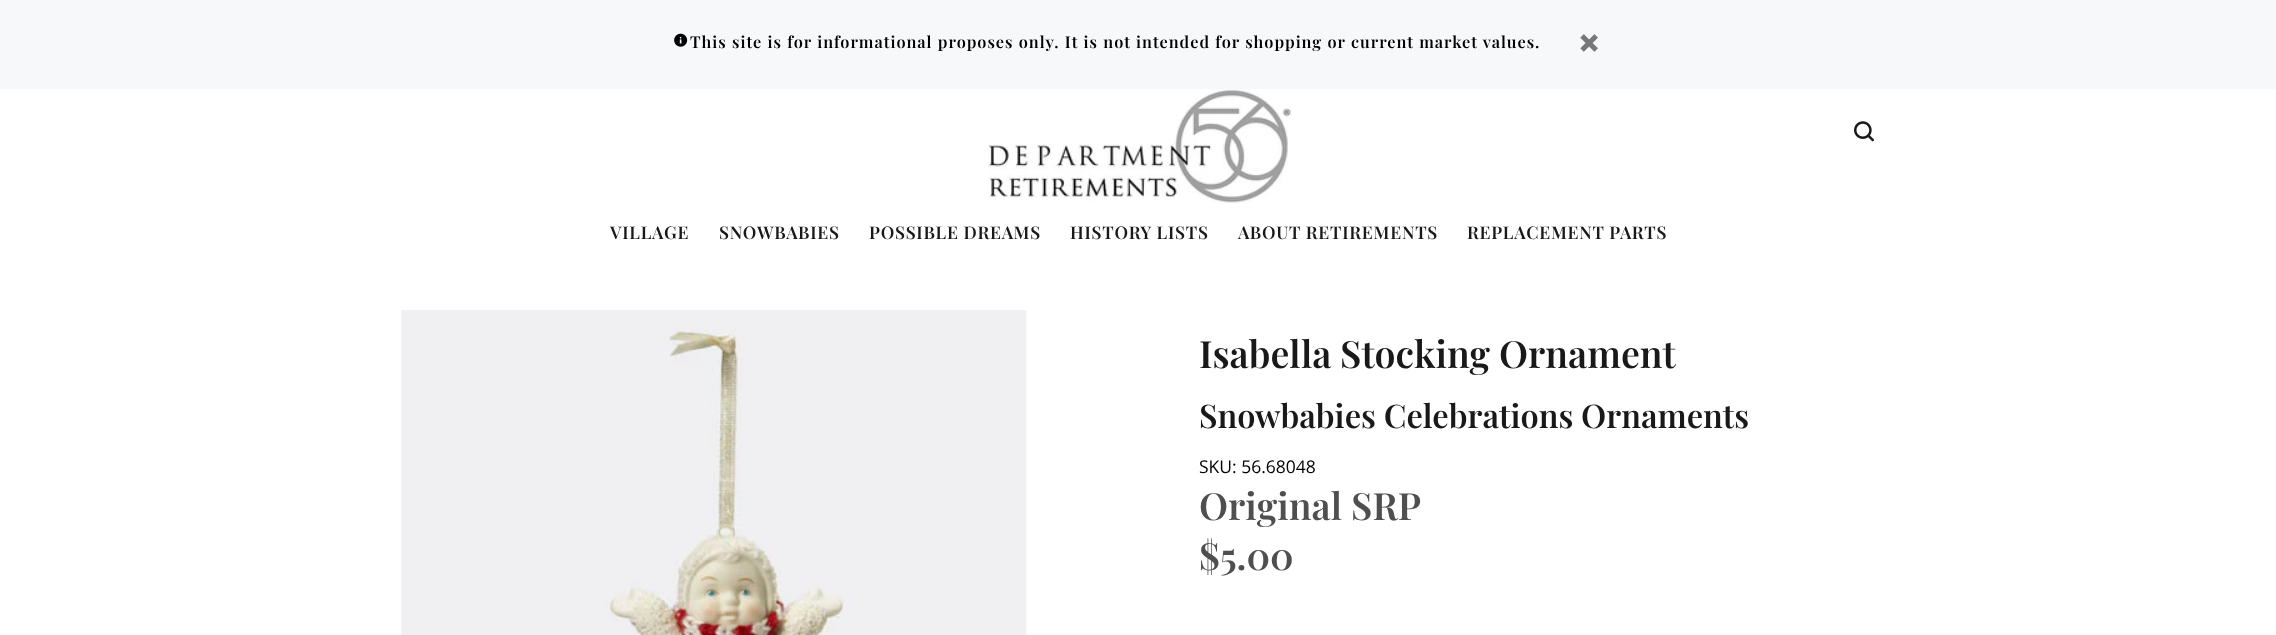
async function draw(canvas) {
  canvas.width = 2276;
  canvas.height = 635;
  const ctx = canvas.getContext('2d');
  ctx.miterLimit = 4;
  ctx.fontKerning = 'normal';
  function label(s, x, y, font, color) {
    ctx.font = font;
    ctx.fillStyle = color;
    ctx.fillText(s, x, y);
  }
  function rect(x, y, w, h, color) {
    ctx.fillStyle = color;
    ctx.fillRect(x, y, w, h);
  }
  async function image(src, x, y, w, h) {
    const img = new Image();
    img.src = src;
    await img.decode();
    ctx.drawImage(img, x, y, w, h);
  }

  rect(0, 0, 2276, 635, '#fff');
  rect(0, 0, 2276, 89, '#f7f8fa');
  await image('assets/img1.png', 674, 33, 14, 14);
  ctx.letterSpacing = '0.98px';
  ctx.wordSpacing = '0.5px';
  label('This site is for informational proposes only. It is not intended for shopping or current market values.', 690, 48, '600 16.25px Playfair Display', '#000');
  await image('assets/img2.png', 1580, 34, 18, 18);
  await image('assets/img3.png', 988, 89, 304, 114);
  await image('assets/img4.png', 1854, 121, 20, 21);
  ctx.letterSpacing = '0.75px';
  ctx.wordSpacing = '0px';
  label('VILLAGE', 610, 239, '600 17.5px Playfair Display', '#191919');
  label('SNOWBABIES', 719, 239, '600 17.5px Playfair Display', '#191919');
  label('POSSIBLE DREAMS', 869, 239, '600 17.5px Playfair Display', '#191919');
  label('HISTORY LISTS', 1070, 239, '600 17.5px Playfair Display', '#191919');
  label('ABOUT RETIREMENTS', 1238, 239, '600 17.5px Playfair Display', '#191919');
  label('REPLACEMENT PARTS', 1467, 239, '600 17.5px Playfair Display', '#191919');
  await image('assets/img5.png', 401, 310, 626, 325);
  ctx.letterSpacing = '0px';
  label('Isabella Stocking Ornament', 1199, 368, '600 37.5px Playfair Display', '#191919');
  label('Snowbabies Celebrations Ornaments', 1199, 428, '600 32.5px Playfair Display', '#191919');
  label('SKU: 56.68048', 1199, 473, '17.5px Open Sans', '#000');
  label('Original SRP', 1199, 520, '600 37.5px Playfair Display', '#4f4f4f');
  label('$5.00', 1199, 570, '600 37.5px Playfair Display', '#4f4f4f');
}

draw(document.querySelector('canvas'));
